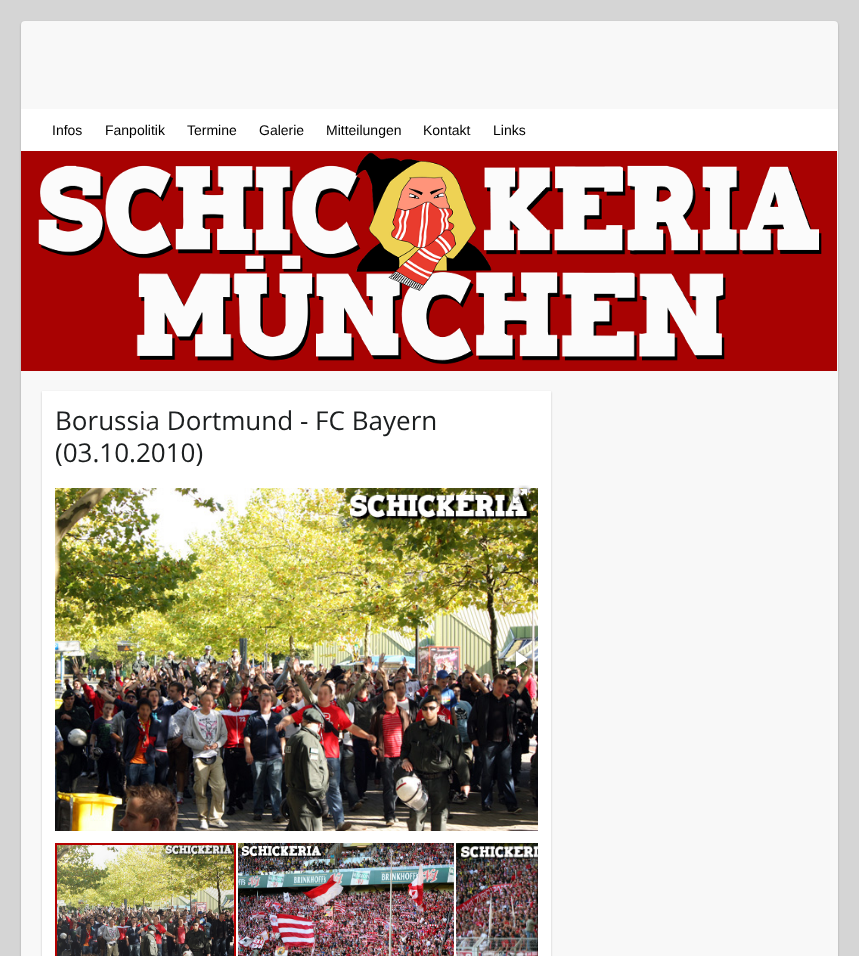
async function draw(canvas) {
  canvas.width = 859;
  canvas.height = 956;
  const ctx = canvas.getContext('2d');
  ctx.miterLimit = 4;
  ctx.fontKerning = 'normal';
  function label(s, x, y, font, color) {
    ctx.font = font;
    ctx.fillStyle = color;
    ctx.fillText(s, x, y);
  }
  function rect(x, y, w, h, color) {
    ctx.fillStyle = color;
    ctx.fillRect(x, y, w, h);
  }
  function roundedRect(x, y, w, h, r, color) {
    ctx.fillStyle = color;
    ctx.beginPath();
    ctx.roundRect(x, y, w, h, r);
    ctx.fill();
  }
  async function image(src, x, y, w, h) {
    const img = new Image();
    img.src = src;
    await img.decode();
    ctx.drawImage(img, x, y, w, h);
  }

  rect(0, 0, 859, 956, '#d5d5d5');
  ctx.fillStyle = '#00000033';
  ctx.filter = 'blur(1px)';
  ctx.beginPath();
  ctx.roundRect(21, 22, 817, 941, 4);
  ctx.fill();
  ctx.filter = 'none';
  roundedRect(21, 21, 817, 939, 4, '#f8f8f8');
  rect(21, 109, 817, 42, '#fff');
  label('Infos', 52, 135, '14px Liberation Sans', '#000');
  label('Fanpolitik', 105, 135, '14px Liberation Sans', '#000');
  label('Termine', 187, 135, '14px Liberation Sans', '#000');
  label('Galerie', 259, 135, '14px Liberation Sans', '#000');
  label('Mitteilungen', 326, 135, '14px Liberation Sans', '#000');
  label('Kontakt', 423, 135, '14px Liberation Sans', '#000');
  label('Links', 493, 135, '14px Liberation Sans', '#000');
  await image('assets/img1.png', 21, 151, 816, 220);
  ctx.fillStyle = '#00000033';
  ctx.filter = 'blur(1px)';
  ctx.beginPath();
  ctx.rect(42, 392, 509, 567);
  ctx.fill();
  ctx.filter = 'none';
  rect(42, 391, 509, 565, '#fff');
  label('Borussia Dortmund - FC Bayern', 55, 430, '26px Open Sans', '#1b1e1f');
  label('(03.10.2010)', 55, 462, '26px Open Sans', '#1b1e1f');
  await image('assets/img3.png', 55, 488, 483, 343);
  await image('assets/img2.png', 509, 485, 22, 22);
  await image('assets/img4.png', 64, 650, 14, 17);
  await image('assets/img5.png', 511, 648, 19, 22);
  await image('assets/img8.png', 57, 845, 177, 111);
  ctx.strokeStyle = '#b50000';
  ctx.lineWidth = 2;
  ctx.strokeRect(56, 844, 179, 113);
  await image('assets/img6.png', 238, 843, 216, 113);
  await image('assets/img7.png', 456, 843, 82, 113);
}

draw(document.querySelector('canvas'));
